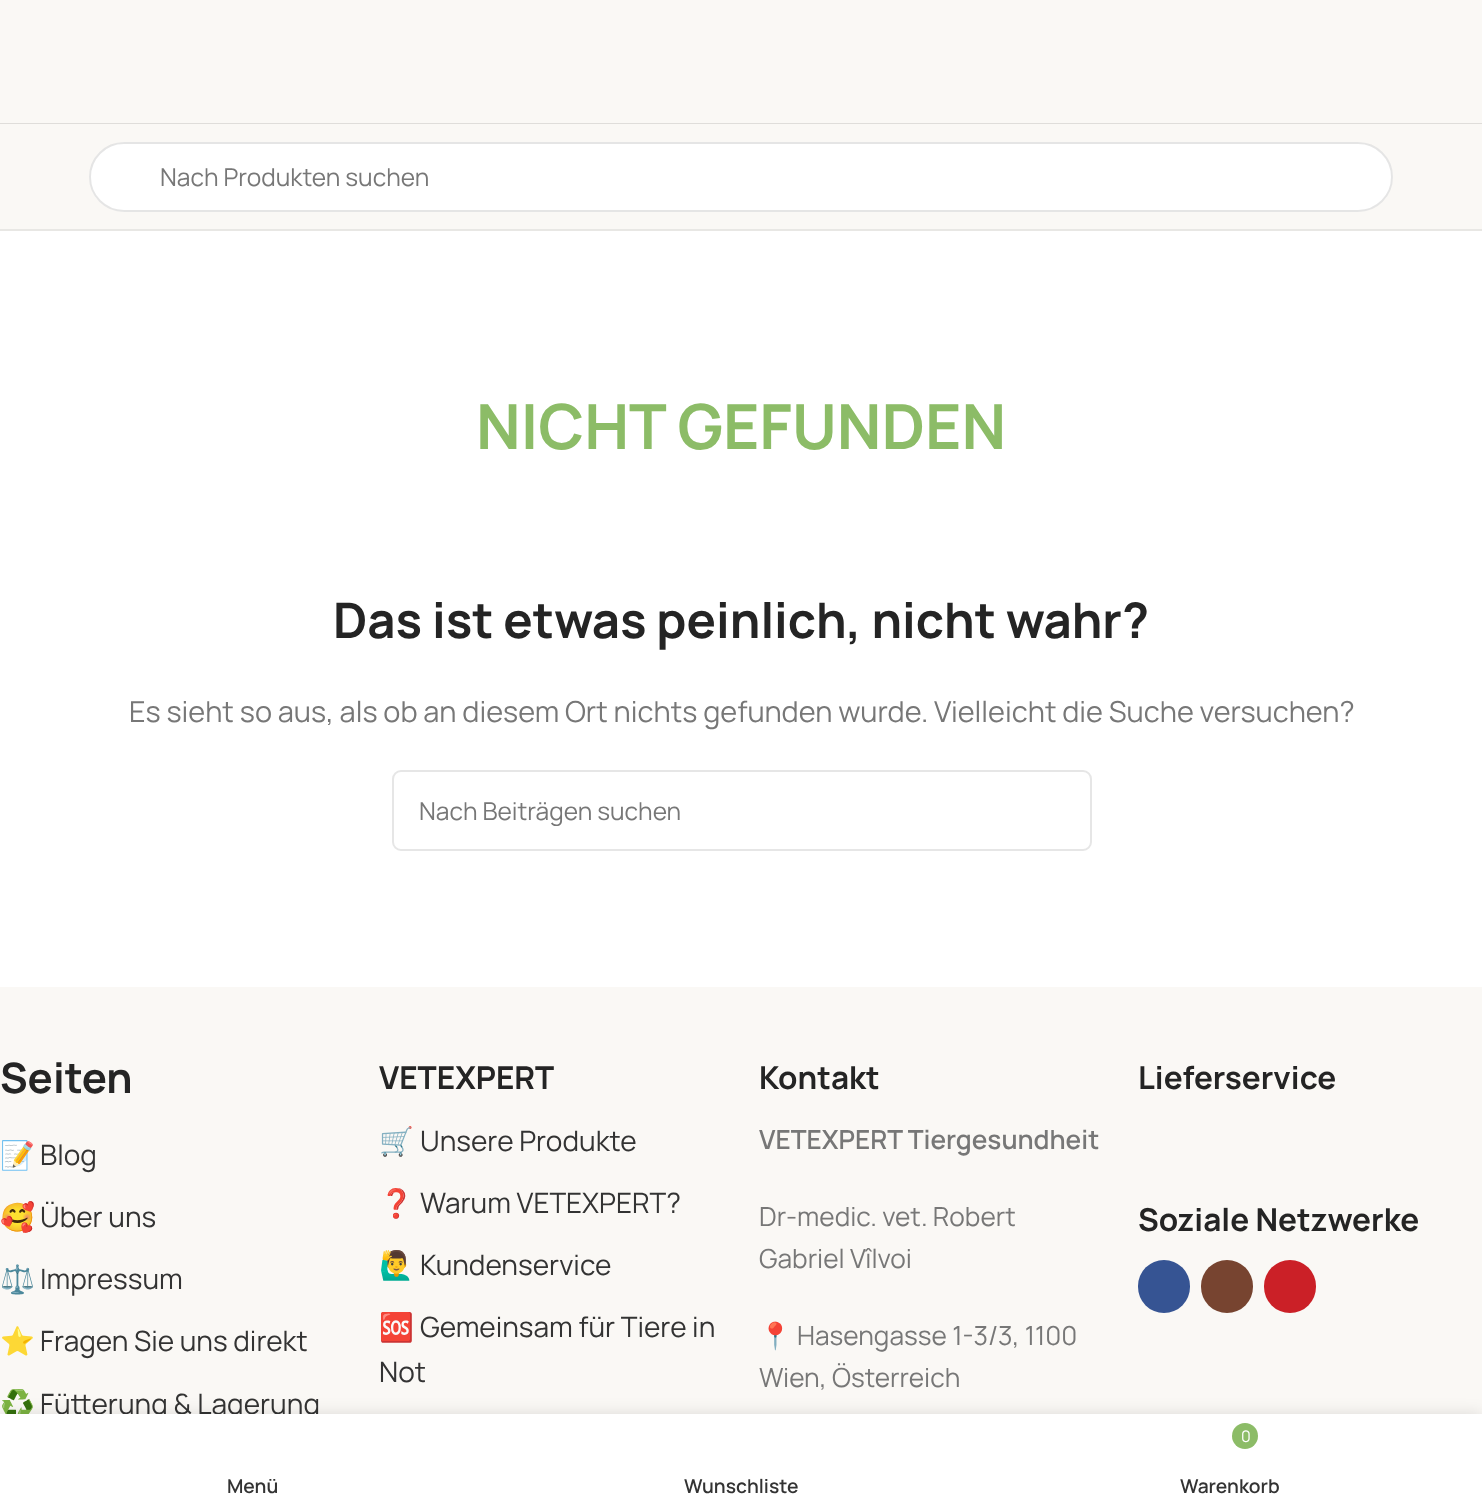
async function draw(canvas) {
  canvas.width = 1482;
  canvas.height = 1510;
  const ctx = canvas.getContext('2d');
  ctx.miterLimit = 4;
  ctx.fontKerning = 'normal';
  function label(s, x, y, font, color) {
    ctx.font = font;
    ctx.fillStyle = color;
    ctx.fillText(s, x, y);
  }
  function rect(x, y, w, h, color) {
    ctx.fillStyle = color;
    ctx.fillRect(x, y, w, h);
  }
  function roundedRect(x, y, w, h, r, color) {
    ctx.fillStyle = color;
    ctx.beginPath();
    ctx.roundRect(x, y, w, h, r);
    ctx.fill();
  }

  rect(0, 0, 1482, 1510, '#fff');
  rect(0, 0, 1482, 123, '#faf8f5');
  rect(0, 123, 1482, 1, '#dfddda');
  rect(0, 124, 1482, 105, '#faf8f5');
  rect(0, 229, 1482, 2, '#e8e7e4');
  roundedRect(89, 142, 1304, 70, 35, '#fff');
  ctx.beginPath();
  ctx.roundRect(90, 143, 1302, 68, 34);
  ctx.strokeStyle = '#0000001a';
  ctx.lineWidth = 2;
  ctx.stroke();
  label('Nach Produkten suchen', 160, 186, '24.5px Manrope', '#777');
  label('NICHT GEFUNDEN', 476, 449, 'bold 62.25px Manrope', '#8cbc67');
  label('Das ist etwas peinlich, nicht wahr?', 333, 638, 'bold 49px Manrope', '#242424');
  label('Es sieht so aus, als ob an diesem Ort nichts gefunden wurde. Vielleicht die Suche versuchen?', 129, 722, '28.9px Manrope', '#777');
  ctx.beginPath();
  ctx.roundRect(393, 771, 698, 79, 8);
  ctx.strokeStyle = '#e6e6e6';
  ctx.stroke();
  ctx.save();
  ctx.beginPath();
  ctx.rect(420, 793, 537, 33);
  ctx.clip();
  label('Nach Beiträgen suchen', 419, 820, '24.5px Manrope', '#777');
  ctx.restore();
  rect(0, 987, 1482, 427, '#faf8f5');
  label('Seiten', 0, 1093, 'bold 42px Manrope', '#242424');
  label('📝', 0, 1165, '28px Noto Color Emoji', '#333');
  label('Blog', 40, 1165, '28px Manrope', '#333');
  label('🥰', 0, 1227, '28px Noto Color Emoji', '#333');
  label('Über uns', 40, 1227, '28px Manrope', '#333');
  label('⚖️', 0, 1289, '28px Noto Color Emoji', '#333');
  label('Impressum', 40, 1289, '28px Manrope', '#333');
  label('⭐', 0, 1351, '28px Noto Color Emoji', '#333');
  label('Fragen Sie uns direkt', 40, 1351, '28px Manrope', '#333');
  label('♻️', 0, 1414, '28px Noto Color Emoji', '#333');
  label('Fütterung & Lagerung', 40, 1414, '28px Manrope', '#333');
  label('VETEXPERT', 379, 1089, 'bold 31.5px Manrope', '#242424');
  label('🛒', 379, 1151, '28px Noto Color Emoji', '#333');
  label('Unsere Produkte', 420, 1151, '28px Manrope', '#333');
  label('❓', 379, 1213, '28px Noto Color Emoji', '#333');
  label('Warum VETEXPERT?', 420, 1213, '28px Manrope', '#333');
  label('🙋‍♂️', 379, 1275, '28px Noto Color Emoji', '#333');
  label('Kundenservice', 420, 1275, '28px Manrope', '#333');
  label('🆘', 379, 1337, '28px Noto Color Emoji', '#333');
  label('Gemeinsam für Tiere in', 420, 1337, '28px Manrope', '#333');
  label('Not', 379, 1382, '28px Manrope', '#333');
  label('Kontakt', 759, 1089, 'bold 31.5px Manrope', '#242424');
  label('VETEXPERT Tiergesundheit', 759, 1149, '600 26.25px Manrope', '#777');
  label('Dr-medic. vet. Robert', 759, 1226, '26.25px Manrope', '#777');
  label('Gabriel Vîlvoi', 759, 1268, '26.25px Manrope', '#777');
  label('📍', 759, 1345, '26.25px Noto Color Emoji', '#777');
  label('Hasengasse 1-3/3, 1100', 797, 1345, '26.25px Manrope', '#777');
  label('Wien, Österreich', 759, 1387, '26.25px Manrope', '#777');
  label('Lieferservice', 1138, 1089, 'bold 31.5px Manrope', '#242424');
  label('Soziale Netzwerke', 1138, 1231, 'bold 31.5px Manrope', '#242424');
  roundedRect(1138, 1260, 52, 53, 26, '#365493');
  roundedRect(1201, 1260, 52, 53, 26, '#774430');
  roundedRect(1264, 1260, 52, 53, 26, '#cb2027');
  ctx.fillStyle = '#0000001f';
  ctx.filter = 'blur(8px)';
  ctx.beginPath();
  ctx.rect(0, 1414, 1482, 96);
  ctx.fill();
  ctx.filter = 'none';
  rect(0, 1414, 1482, 96, '#fff');
  label('Menü', 227, 1493, '600 19.25px Manrope', '#333');
  label('Wunschliste', 684, 1493, '600 19.25px Manrope', '#333');
  ctx.fillStyle = '#8cbc67';
  ctx.beginPath();
  ctx.arc(1245, 1436, 13, 0, 2 * Math.PI);
  ctx.fill();
  label('0', 1241, 1442, '16px Manrope', '#fff');
  label('Warenkorb', 1180, 1493, '600 19.25px Manrope', '#333');
}

draw(document.querySelector('canvas'));
